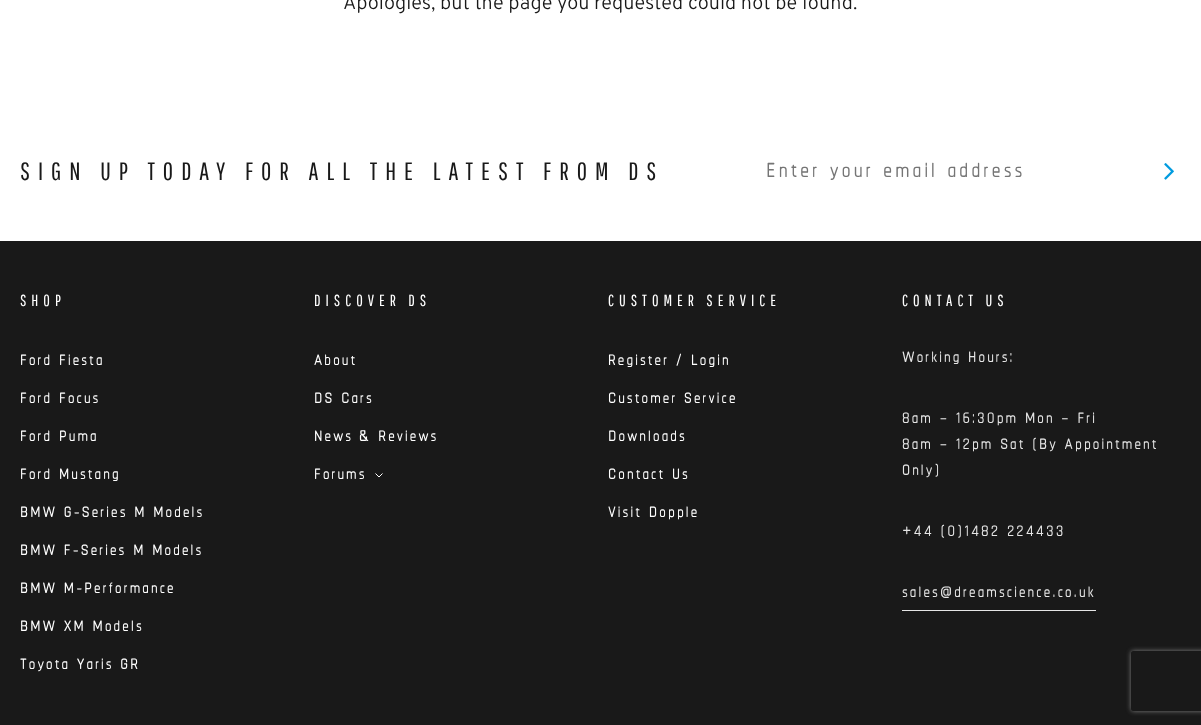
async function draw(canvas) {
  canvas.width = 1201;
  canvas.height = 725;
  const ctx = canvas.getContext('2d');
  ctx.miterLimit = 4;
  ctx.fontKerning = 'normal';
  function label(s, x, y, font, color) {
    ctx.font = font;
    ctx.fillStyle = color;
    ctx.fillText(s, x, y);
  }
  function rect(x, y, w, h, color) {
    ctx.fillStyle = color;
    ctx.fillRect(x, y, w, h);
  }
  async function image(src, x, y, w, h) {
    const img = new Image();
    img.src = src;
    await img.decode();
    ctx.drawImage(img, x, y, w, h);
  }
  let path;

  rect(0, 0, 1201, 725, '#fff');
  label('Apologies, but the page you requested could not be found.', 343, 9, '300 20px Overpass', '#191919');
  ctx.letterSpacing = '8px';
  label('SIGN UP TODAY FOR ALL THE LATEST FROM DS', 20, 180, '25px Pathway Gothic One', '#191919');
  ctx.letterSpacing = '3px';
  label('Enter your email address', 766, 177, 'bold 35px Chathura', '#757575');
  await image('assets/img1.png', 1164, 163, 10, 17);
  rect(0, 241, 1201, 484, '#191919');
  ctx.letterSpacing = '5px';
  label('SHOP', 20, 306, '16px Pathway Gothic One', '#fff');
  ctx.letterSpacing = '2px';
  label('Ford Fiesta', 20, 365, 'bold 26px Chathura', '#fff');
  label('Ford Focus', 20, 403, 'bold 26px Chathura', '#fff');
  label('Ford Puma', 20, 441, 'bold 26px Chathura', '#fff');
  label('Ford Mustang', 20, 479, 'bold 26px Chathura', '#fff');
  label('BMW G-Series M Models', 20, 517, 'bold 26px Chathura', '#fff');
  label('BMW F-Series M Models', 20, 555, 'bold 26px Chathura', '#fff');
  label('BMW M-Performance', 20, 593, 'bold 26px Chathura', '#fff');
  label('BMW XM Models', 20, 631, 'bold 26px Chathura', '#fff');
  label('Toyota Yaris GR', 20, 669, 'bold 26px Chathura', '#fff');
  ctx.letterSpacing = '5px';
  label('DISCOVER DS', 314, 306, '16px Pathway Gothic One', '#fff');
  ctx.letterSpacing = '2px';
  label('About', 314, 365, 'bold 26px Chathura', '#fff');
  label('DS Cars', 314, 403, 'bold 26px Chathura', '#fff');
  label('News & Reviews', 314, 441, 'bold 26px Chathura', '#fff');
  label('Forums', 314, 479, 'bold 26px Chathura', '#fff');
  path = new Path2D('M382.5 473.5L379 477L375.5 473.5');
  ctx.strokeStyle = '#fff';
  ctx.stroke(path);
  ctx.letterSpacing = '5px';
  label('CUSTOMER SERVICE', 608, 306, '16px Pathway Gothic One', '#fff');
  ctx.letterSpacing = '2px';
  label('Register / Login', 608, 365, 'bold 26px Chathura', '#fff');
  label('Customer Service', 608, 403, 'bold 26px Chathura', '#fff');
  label('Downloads', 608, 441, 'bold 26px Chathura', '#fff');
  label('Contact Us', 608, 479, 'bold 26px Chathura', '#fff');
  label('Visit Dopple', 608, 517, 'bold 26px Chathura', '#fff');
  ctx.letterSpacing = '5px';
  label('CONTACT US', 902, 306, '16px Pathway Gothic One', '#fff');
  ctx.letterSpacing = '2px';
  label('Working Hours:', 902, 362, 'bold 26px Chathura', '#e6e6e6');
  label('8am – 16:30pm Mon – Fri', 902, 423, 'bold 26px Chathura', '#e6e6e6');
  label('8am – 12pm Sat (By Appointment', 902, 449, 'bold 26px Chathura', '#e6e6e6');
  label('Only)', 902, 475, 'bold 26px Chathura', '#e6e6e6');
  label('+44 (0)1482 224433', 902, 536, 'bold 26px Chathura', '#e6e6e6');
  rect(902, 610, 194, 1, '#e6e6e6');
  label('sales@dreamscience.co.uk', 902, 597, 'bold 26px Chathura', '#e6e6e6');
  ctx.save();
  path = new Path2D('M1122 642H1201V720H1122ZM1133 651H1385C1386 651 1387 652 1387 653V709C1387 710 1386 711 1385 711H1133C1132 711 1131 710 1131 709V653C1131 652 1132 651 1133 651Z');
  ctx.clip(path, 'evenodd');
  ctx.fillStyle = '#808080';
  ctx.filter = 'blur(2.5px)';
  ctx.beginPath();
  ctx.roundRect(1131, 651, 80, 60, 2);
  ctx.fill();
  ctx.filter = 'none';
  ctx.restore();
}

draw(document.querySelector('canvas'));
